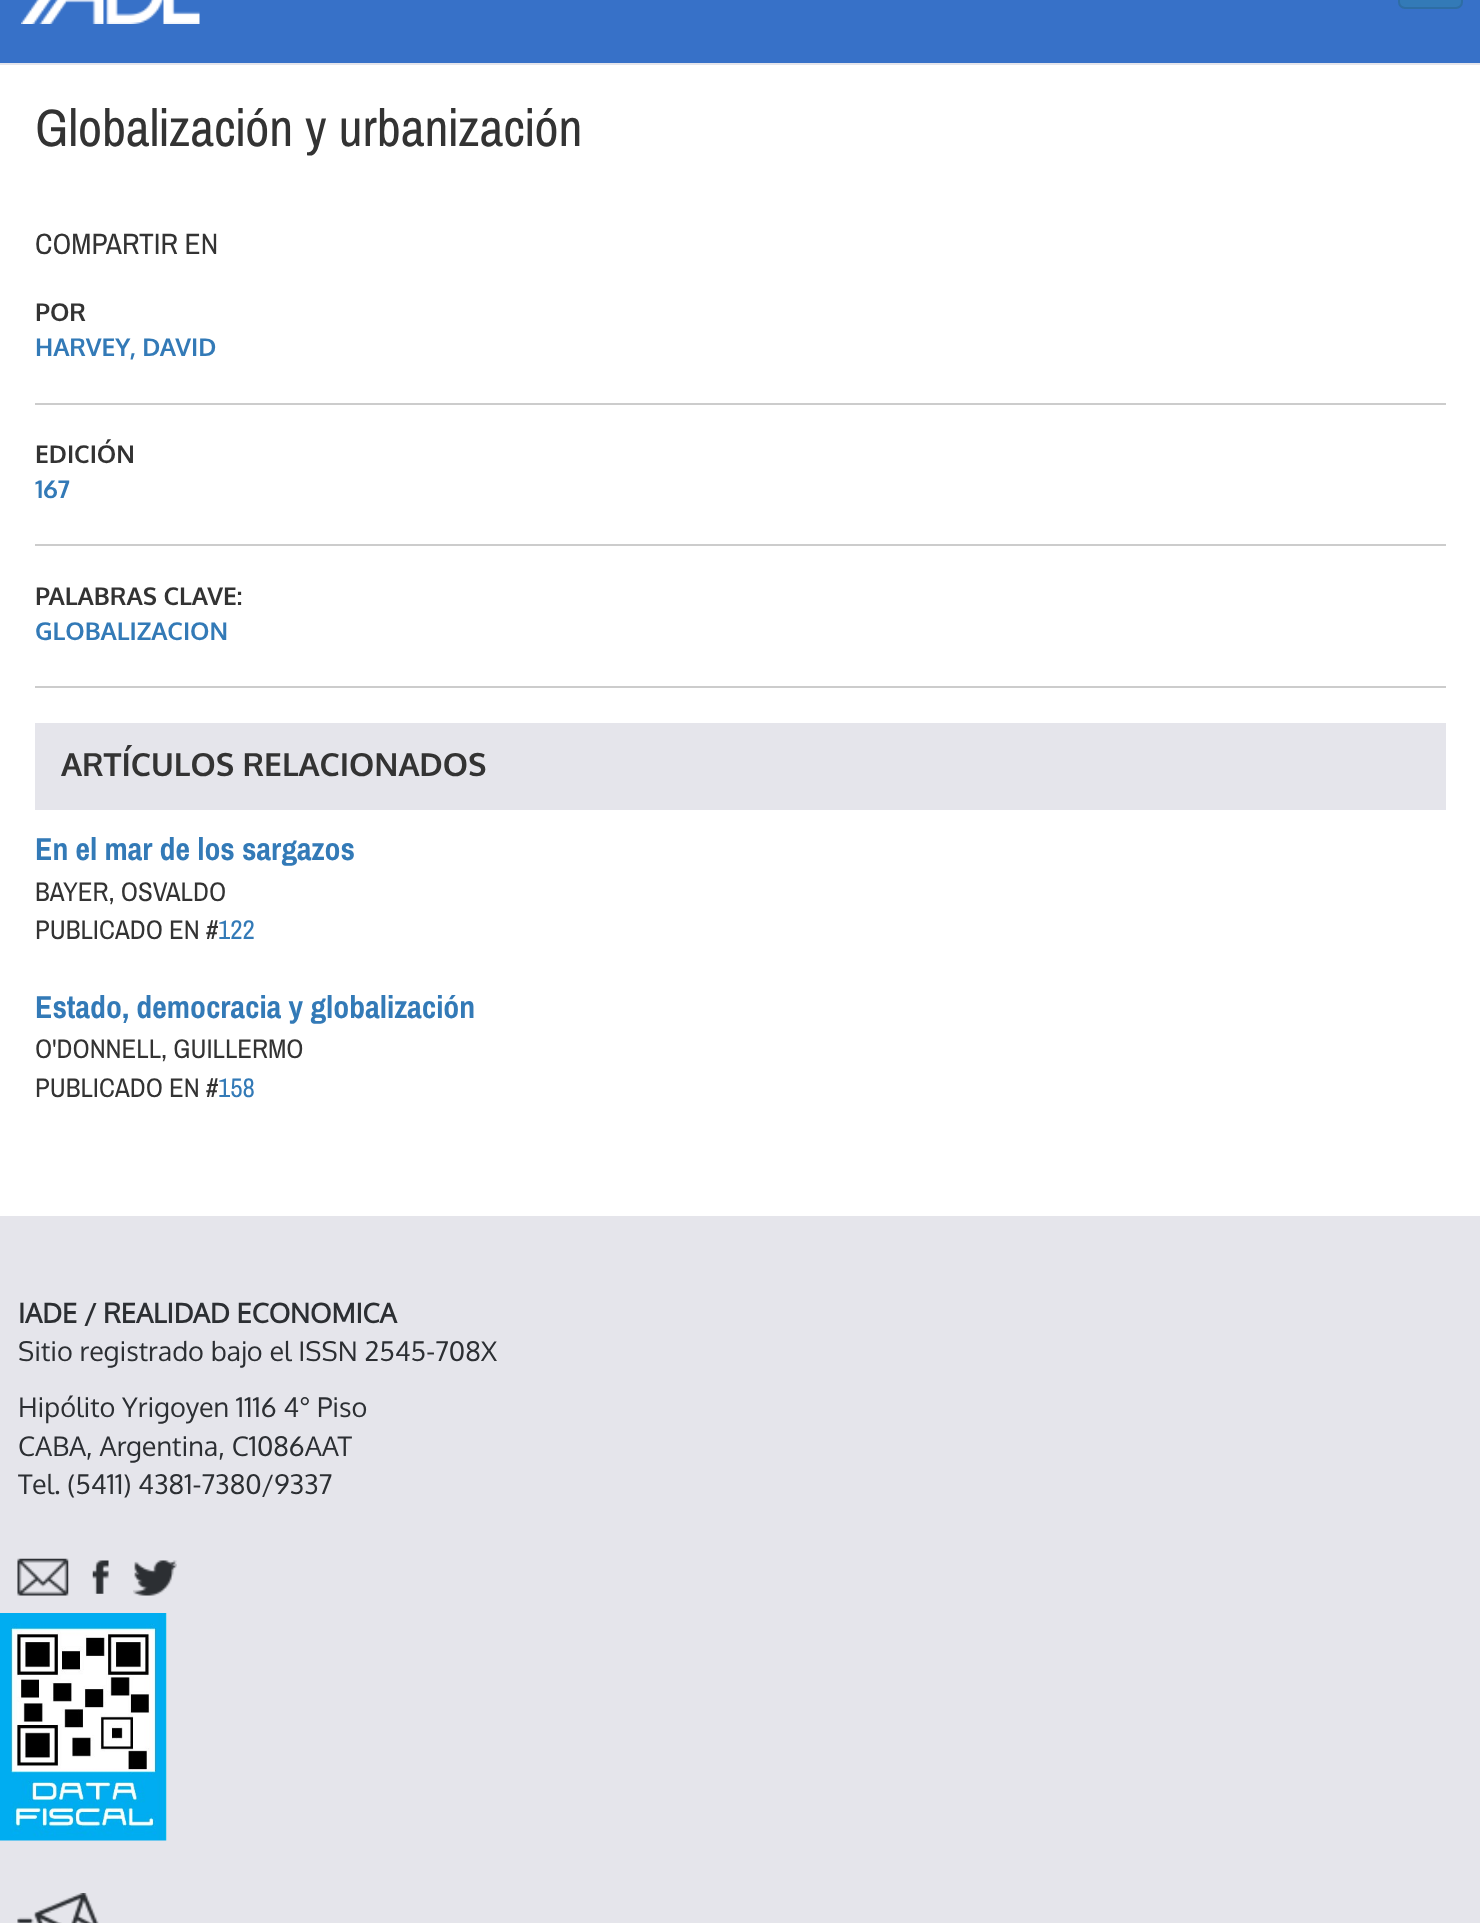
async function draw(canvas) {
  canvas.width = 1480;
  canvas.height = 1923;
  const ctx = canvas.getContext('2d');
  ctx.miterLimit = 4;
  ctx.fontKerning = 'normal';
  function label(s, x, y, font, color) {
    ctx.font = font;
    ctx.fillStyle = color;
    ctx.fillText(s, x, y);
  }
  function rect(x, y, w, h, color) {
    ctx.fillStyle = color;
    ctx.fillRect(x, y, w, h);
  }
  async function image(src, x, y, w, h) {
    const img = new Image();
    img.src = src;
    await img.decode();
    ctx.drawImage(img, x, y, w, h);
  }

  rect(0, 0, 1480, 1923, '#fff');
  rect(0, 0, 1480, 63, '#3771c8');
  await image('assets/img1.png', 21, 0, 179, 24);
  ctx.fillStyle = '#337ab7';
  ctx.beginPath();
  ctx.roundRect(1399, -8, 63, 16, 6);
  ctx.fill();
  ctx.strokeStyle = '#2e6da4';
  ctx.lineWidth = 2;
  ctx.stroke();
  rect(0, 63, 1480, 2, '#e5e5eb');
  label('Globalización y urbanización', 35, 146, '52.5px Archivo Narrow', '#333');
  label('COMPARTIR EN', 35, 254, '29.5px Archivo Narrow', '#333');
  rect(35, 403, 1411, 2, '#ccc');
  label('POR', 35, 321, 'bold 24.5px Oxygen', '#333');
  label('HARVEY, DAVID', 35, 356, 'bold 24.5px Oxygen', '#337ab7');
  rect(35, 544, 1411, 2, '#ccc');
  label('EDICIÓN', 35, 463, 'bold 24.5px Oxygen', '#333');
  label('167', 35, 498, 'bold 24.5px Oxygen', '#337ab7');
  rect(35, 686, 1411, 2, '#ccc');
  label('PALABRAS CLAVE:', 35, 605, 'bold 24.5px Oxygen', '#333');
  label('GLOBALIZACION', 35, 640, 'bold 24.5px Oxygen', '#337ab7');
  rect(35, 723, 1411, 87, '#e5e5eb');
  label('ARTÍCULOS RELACIONADOS', 61, 776, 'bold 31.8px Oxygen', '#333');
  label('En el mar de los sargazos', 35, 860, 'bold 31.8px Archivo Narrow', '#337ab7');
  label('BAYER, OSVALDO', 35, 901, '27px Archivo Narrow', '#333');
  label('PUBLICADO EN #', 35, 939, '27px Archivo Narrow', '#333');
  label('122', 218, 939, '27px Archivo Narrow', '#337ab7');
  label('Estado, democracia y globalización', 35, 1018, 'bold 31.8px Archivo Narrow', '#337ab7');
  label('O\'DONNELL, GUILLERMO', 35, 1058, '27px Archivo Narrow', '#333');
  label('PUBLICADO EN #', 35, 1097, '27px Archivo Narrow', '#333');
  label('158', 218, 1097, '27px Archivo Narrow', '#337ab7');
  rect(0, 1216, 1480, 707, '#e5e5eb');
  label('IADE / REALIDAD ECONOMICA', 18, 1323, 'bold 27px "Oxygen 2"', '#2c2f33');
  label('Sitio registrado bajo el ISSN 2545-708X', 18, 1361, '27px Oxygen', '#2c2f33');
  label('Hipólito Yrigoyen 1116 4° Piso', 18, 1417, '27px Oxygen', '#2c2f33');
  label('CABA, Argentina, C1086AAT', 18, 1456, '27px Oxygen', '#2c2f33');
  label('Tel. (5411) 4381-7380/9337', 18, 1494, '27px Oxygen', '#2c2f33');
  await image('assets/img2.png', 17, 1558, 52, 38);
  await image('assets/img3.png', 92, 1560, 17, 34);
  await image('assets/img4.png', 133, 1560, 44, 36);
  await image('assets/img5.png', 0, 1613, 167, 228);
  await image('assets/img6.png', 17, 1893, 82, 30);
}

draw(document.querySelector('canvas'));
